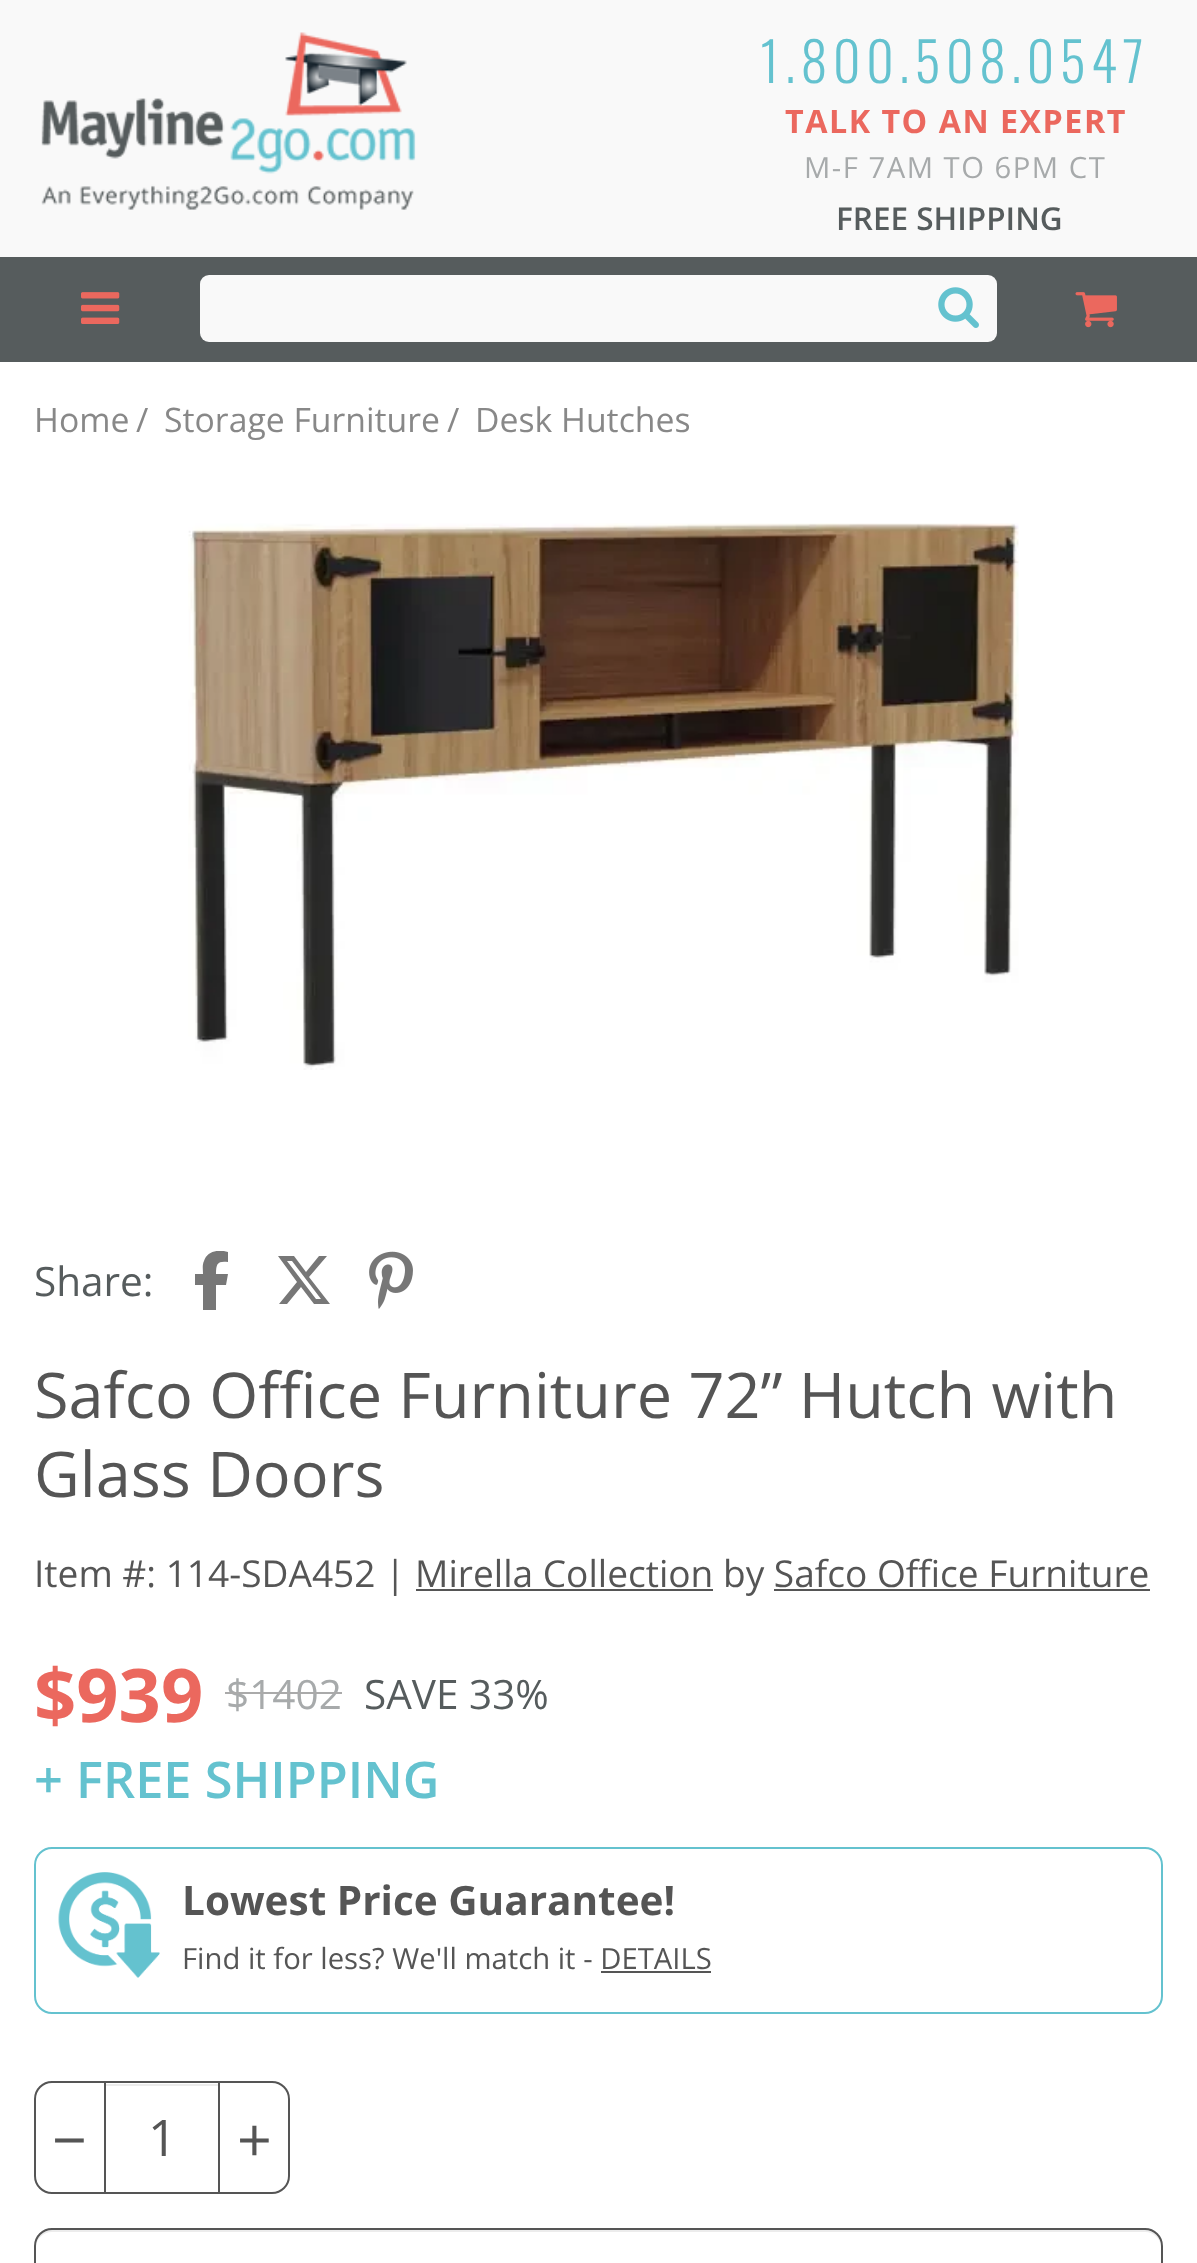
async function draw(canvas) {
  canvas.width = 1197;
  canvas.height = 2263;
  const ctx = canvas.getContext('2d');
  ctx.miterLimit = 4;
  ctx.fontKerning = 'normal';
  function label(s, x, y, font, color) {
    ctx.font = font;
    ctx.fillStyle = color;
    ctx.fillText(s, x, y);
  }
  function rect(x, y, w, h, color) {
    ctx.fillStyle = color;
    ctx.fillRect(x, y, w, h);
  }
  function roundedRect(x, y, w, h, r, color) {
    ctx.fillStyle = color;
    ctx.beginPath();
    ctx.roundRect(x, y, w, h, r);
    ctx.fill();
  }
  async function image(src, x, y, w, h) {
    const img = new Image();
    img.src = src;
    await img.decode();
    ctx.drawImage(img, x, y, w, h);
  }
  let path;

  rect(0, 0, 1197, 2263, '#fff');
  rect(0, 0, 1197, 257, '#f9f9f9');
  await image('assets/img1.png', 41, 32, 375, 178);
  ctx.letterSpacing = '5.4px';
  label('1.800.508.0547', 760, 83, '300 54px Oswald', '#64c2cf');
  ctx.letterSpacing = '1.5px';
  label('TALK TO AN EXPERT', 785, 133, 'bold 32.25px Open Sans', '#eb685e');
  label('M-F 7AM TO 6PM CT', 804, 178, '29.25px Open Sans', '#a7aaab');
  ctx.letterSpacing = '0px';
  label('FREE SHIPPING', 836, 230, '600 31.5px Open Sans', '#565c5d');
  rect(0, 257, 1197, 105, '#565c5d');
  await image('assets/img2.png', 81, 292, 39, 32);
  roundedRect(200, 275, 797, 67, 9, '#f9f9f9');
  await image('assets/img3.png', 938, 287, 41, 41);
  await image('assets/img4.png', 1075, 292, 42, 36);
  label('Home', 34, 432, '33.75px Open Sans', '#888');
  label('/', 136, 432, '33.75px Open Sans', '#888');
  label('Storage Furniture', 164, 432, '33.75px Open Sans', '#888');
  label('/', 447, 432, '33.75px Open Sans', '#888');
  label('Desk Hutches', 475, 432, '33.75px Open Sans', '#888');
  await image('assets/img5.png', 188, 523, 831, 547);
  label('Share:', 34, 1296, '40.5px Open Sans', '#565c5d');
  ctx.save();
  ctx.beginPath();
  ctx.rect(194, 1251, 36, 59);
  ctx.clip();
  ctx.fillStyle = '#777';
  path = new Path2D('M203 1285V1310H216V1285H226L228 1274H216C216 1263 218 1261 228 1262V1252C219 1249 207 1251 204 1261C202 1265 203 1270 203 1274H195V1285Z');
  ctx.fill(path);
  ctx.restore();
  ctx.fillStyle = '#777';
  path = new Path2D('M319 1256H327L309 1277L330 1304H314L301 1287L287 1304H279L297 1282L278 1256H294L306 1272ZM316 1299H321L292 1261H287Z');
  ctx.fill(path);
  await image('assets/img6.png', 369, 1251, 44, 58);
  label('Safco Office Furniture 72” Hutch with', 34, 1418, '63px Open Sans', '#555');
  label('Glass Doors', 34, 1497, '63px Open Sans', '#555');
  label('Item #: 114-SDA452 | Mirella Collection by Safco Office Furniture', 34, 1587, '37.1px Open Sans', '#555');
  rect(416, 1589, 297, 2, '#555');
  rect(774, 1589, 376, 2, '#555');
  label('$939', 34, 1722, 'bold 74px Open Sans', '#eb685e');
  label('$1402', 226, 1709, '40.5px Open Sans', '#a7aaab');
  rect(225, 1692, 117, 2, '#aaa');
  label('SAVE 33%', 364, 1709, '40.5px Open Sans', '#565c5d');
  label('+ FREE SHIPPING', 34, 1798, '600 50.5px Open Sans', '#64c2cf');
  ctx.beginPath();
  ctx.roundRect(35, 1848, 1127, 165, 17);
  ctx.strokeStyle = '#64c2cf';
  ctx.lineWidth = 2;
  ctx.stroke();
  await image('assets/img7.png', 58, 1872, 102, 106);
  label('Lowest Price Guarantee!', 182, 1915, 'bold 40.5px Open Sans', '#555');
  label('Find it for less? We\'ll match it - DETAILS', 182, 1969, '29.25px Open Sans', '#555');
  rect(601, 1971, 110, 2, '#555');
  ctx.beginPath();
  ctx.roundRect(35, 2082, 70, 111, [17, 0, 0, 17]);
  ctx.strokeStyle = '#555';
  ctx.stroke();
  label('−', 52, 2162, '61px Open Sans', '#555');
  rect(106, 2084, 112, 2, '#ececec');
  rect(106, 2081, 112, 2, '#555');
  rect(106, 2192, 112, 2, '#555');
  label('1', 148, 2156, '50.5px Open Sans', '#555');
  ctx.beginPath();
  ctx.roundRect(219, 2082, 70, 111, [0, 17, 17, 0]);
  ctx.stroke();
  label('+', 237, 2162, '61px Open Sans', '#555');
  ctx.fillStyle = '#ececec';
  path = new Path2D('M52 2232H1145C1154 2232 1161 2239 1161 2248V2246C1161 2237 1154 2230 1145 2230H52C43 2230 36 2237 36 2246V2248C36 2239 43 2232 52 2232Z');
  ctx.fill(path);
  ctx.beginPath();
  ctx.roundRect(35, 2229, 1127, 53, 17);
  ctx.stroke();
}

draw(document.querySelector('canvas'));
